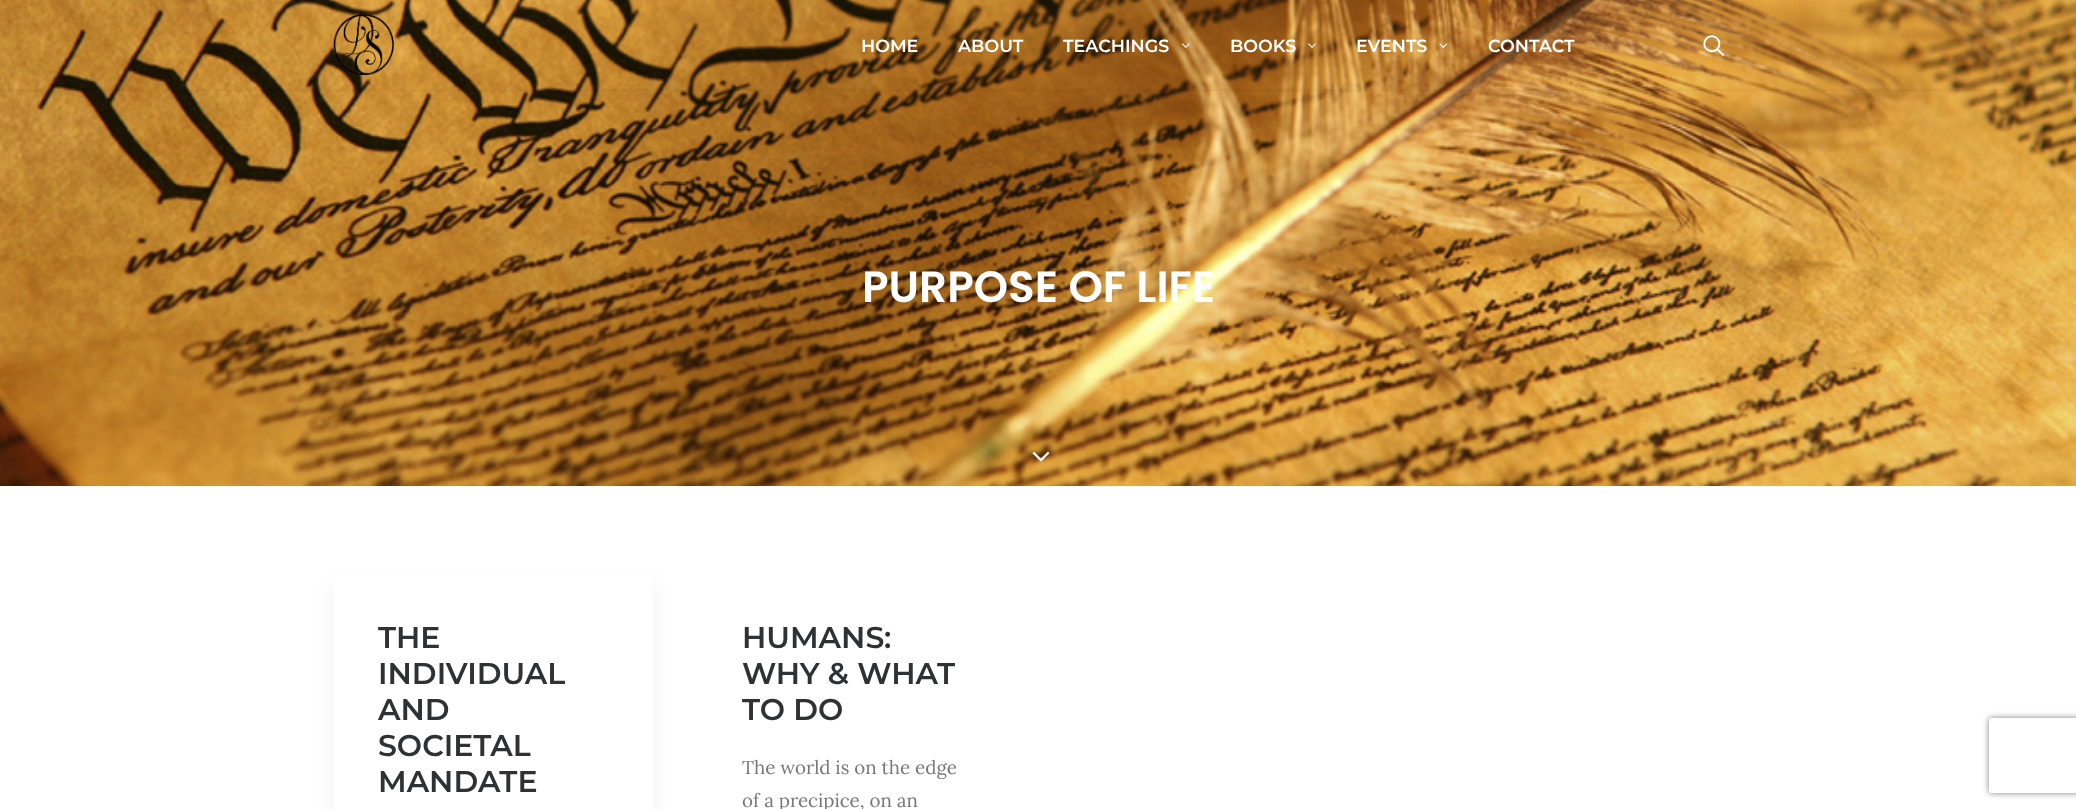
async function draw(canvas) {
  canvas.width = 2076;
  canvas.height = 809;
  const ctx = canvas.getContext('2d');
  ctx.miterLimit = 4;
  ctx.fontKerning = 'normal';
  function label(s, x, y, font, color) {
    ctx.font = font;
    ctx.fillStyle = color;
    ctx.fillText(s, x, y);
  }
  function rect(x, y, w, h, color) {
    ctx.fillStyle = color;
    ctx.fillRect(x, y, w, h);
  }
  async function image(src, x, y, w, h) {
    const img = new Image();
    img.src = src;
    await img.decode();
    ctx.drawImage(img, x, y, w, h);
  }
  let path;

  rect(0, 0, 2076, 809, '#fff');
  await image('assets/img6.png', 0, 0, 2076, 486);
  ctx.save();
  ctx.beginPath();
  ctx.rect(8, 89, 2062, 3);
  ctx.clip();
  ctx.fillStyle = '#00000099';
  ctx.filter = 'blur(6px)';
  ctx.beginPath();
  ctx.rect(9, 18, 2060, 63);
  ctx.fill();
  ctx.filter = 'none';
  ctx.restore();
  await image('assets/img1.png', 333, 12, 61, 63);
  label('HOME', 861, 52, '600 17.5px Montserrat', '#fff');
  label('ABOUT', 958, 52, '600 17.5px Montserrat', '#fff');
  label('TEACHINGS', 1063, 52, '600 17.5px Montserrat', '#fff');
  await image('assets/img2.png', 1181, 43, 9, 5);
  label('BOOKS', 1230, 52, '600 17.5px Montserrat', '#fff');
  await image('assets/img3.png', 1308, 43, 8, 5);
  label('EVENTS', 1356, 52, '600 17.5px Montserrat', '#fff');
  await image('assets/img4.png', 1439, 43, 9, 5);
  label('CONTACT', 1488, 52, '600 17.5px Montserrat', '#fff');
  await image('assets/img5.png', 1703, 35, 21, 21);
  label('PURPOSE OF LIFE', 862, 302, '600 43.75px Poppins', '#fff');
  await image('assets/img7.png', 1032, 451, 18, 11);
  ctx.fillStyle = '#0000000d';
  ctx.filter = 'blur(9.5px)';
  ctx.beginPath();
  ctx.rect(334, 583, 319, 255);
  ctx.fill();
  ctx.filter = 'none';
  rect(334, 576, 319, 233, '#fff');
  label('THE', 378, 648, '600 30px Montserrat', '#303133');
  label('INDIVIDUAL', 378, 684, '600 30px Montserrat', '#303133');
  label('AND', 378, 720, '600 30px Montserrat', '#303133');
  label('SOCIETAL', 378, 756, '600 30px Montserrat', '#303133');
  label('MANDATE', 378, 792, '600 30px Montserrat', '#303133');
  label('HUMANS:', 742, 648, '600 30px Montserrat', '#303133');
  label('WHY & WHAT', 742, 684, '600 30px Montserrat', '#303133');
  label('TO DO', 742, 720, '600 30px Montserrat', '#303133');
  label('The world is on the edge', 742, 774, '18.75px Lora', '#777');
  label('of a precipice, on an', 742, 807, '18.75px Lora', '#777');
  ctx.save();
  path = new Path2D('M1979 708H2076V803H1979ZM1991.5 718H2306.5C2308 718 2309 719 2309 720.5V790.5C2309 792 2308 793 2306.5 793H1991.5C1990 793 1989 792 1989 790.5V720.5C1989 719 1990 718 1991.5 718Z');
  ctx.clip(path, 'evenodd');
  ctx.fillStyle = '#808080';
  ctx.filter = 'blur(3px)';
  ctx.beginPath();
  ctx.roundRect(1989, 718, 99, 75, 2.5);
  ctx.fill();
  ctx.filter = 'none';
  ctx.restore();
}

draw(document.querySelector('canvas'));
